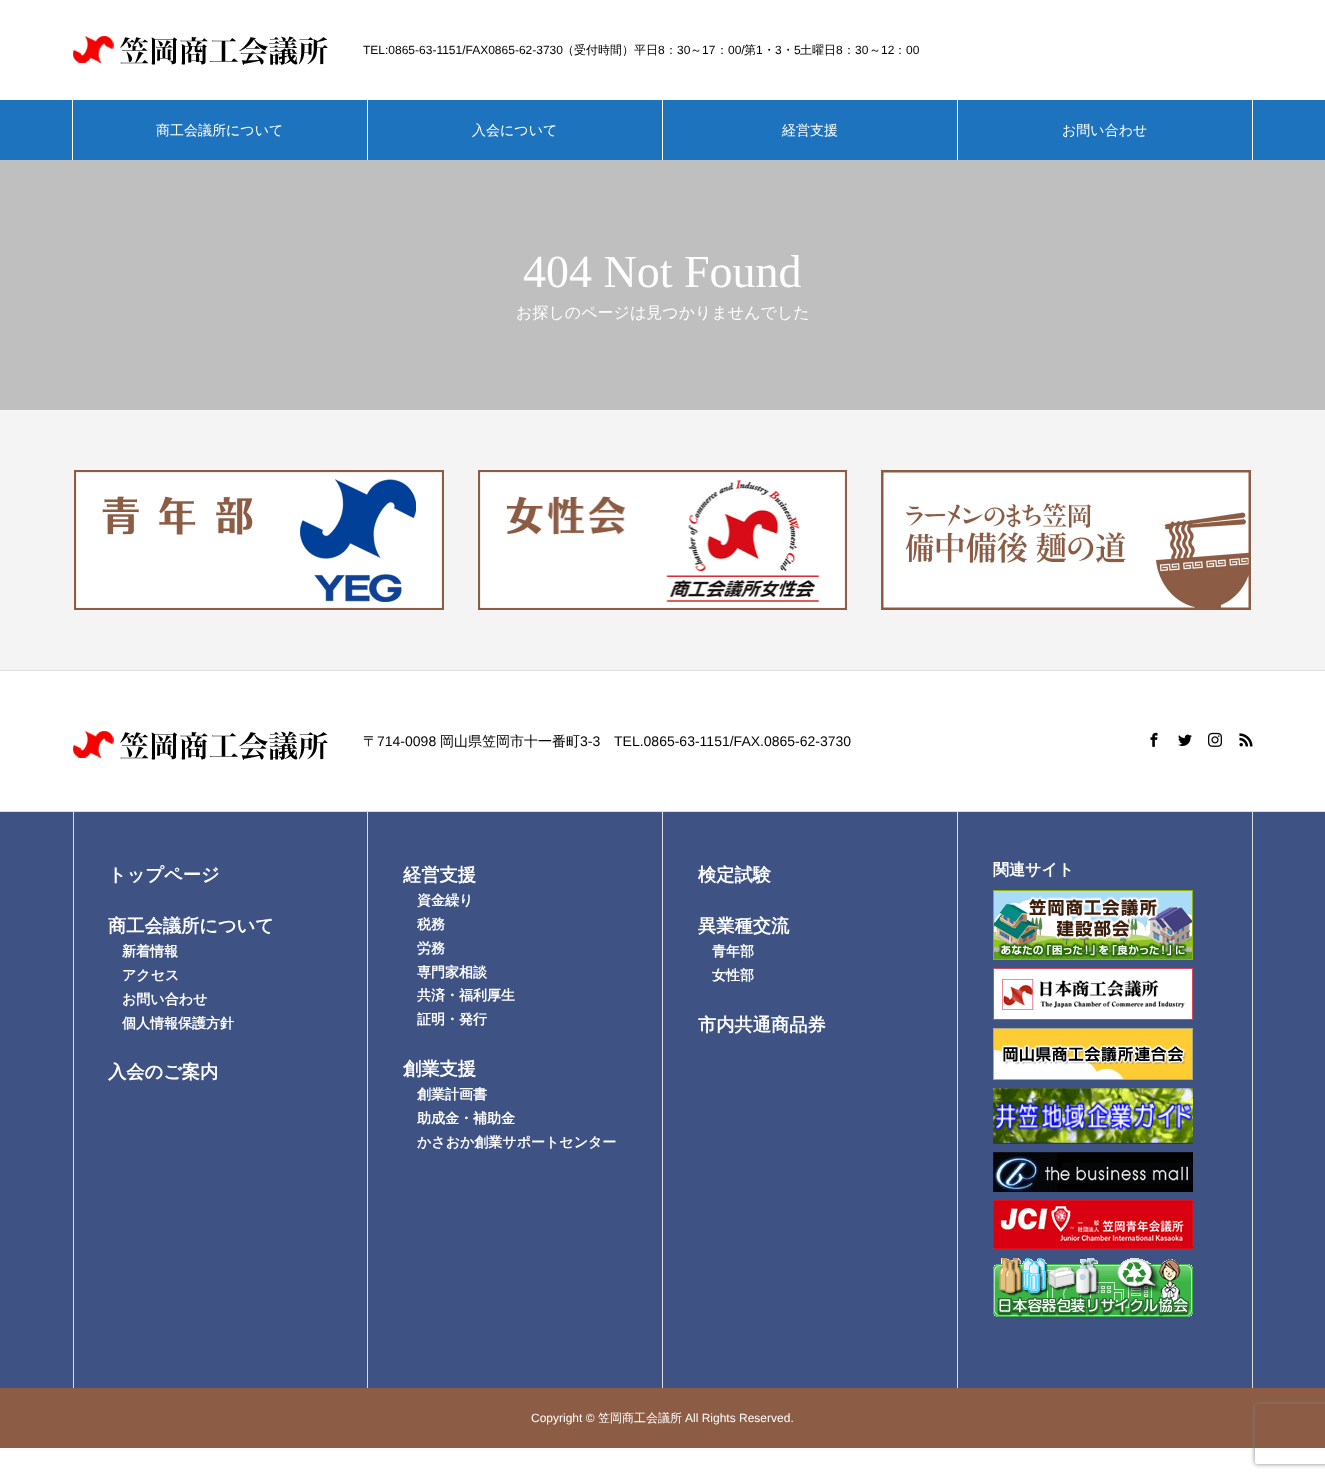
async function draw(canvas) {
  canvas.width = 1325;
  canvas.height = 1478;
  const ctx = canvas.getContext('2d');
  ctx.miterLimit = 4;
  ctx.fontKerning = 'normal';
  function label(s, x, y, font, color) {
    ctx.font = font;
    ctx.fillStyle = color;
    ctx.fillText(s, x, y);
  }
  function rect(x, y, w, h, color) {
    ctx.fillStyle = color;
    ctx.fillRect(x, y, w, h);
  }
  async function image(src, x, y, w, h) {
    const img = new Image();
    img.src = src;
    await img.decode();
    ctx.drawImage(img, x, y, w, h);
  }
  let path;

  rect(0, 0, 1325, 1478, '#fff');
  await image('assets/img1.png', 73, 36, 255, 29);
  label('TEL:0865-63-1151/FAX0865-62-3730', 363, 54, '12px Liberation Sans', '#000');
  label('（受付時間）平日', 562, 54, '500 12px WenQuanYi Zen Hei', '#000');
  label('8', 658, 54, '12px Liberation Sans', '#000');
  label('：', 665, 54, '500 12px WenQuanYi Zen Hei', '#000');
  label('30', 677, 54, '12px Liberation Sans', '#000');
  label('～', 690, 54, '500 12px WenQuanYi Zen Hei', '#000');
  label('17', 702, 54, '12px Liberation Sans', '#000');
  label('：', 716, 54, '500 12px WenQuanYi Zen Hei', '#000');
  label('00/', 728, 54, '12px Liberation Sans', '#000');
  label('第', 744, 54, '500 12px WenQuanYi Zen Hei', '#000');
  label('1', 756, 54, '12px Liberation Sans', '#000');
  label('・', 763, 54, '500 12px WenQuanYi Zen Hei', '#000');
  label('3', 775, 54, '12px Liberation Sans', '#000');
  label('・', 782, 54, '500 12px WenQuanYi Zen Hei', '#000');
  label('5', 794, 54, '12px Liberation Sans', '#000');
  label('土曜日', 800, 54, '500 12px WenQuanYi Zen Hei', '#000');
  label('8', 836, 54, '12px Liberation Sans', '#000');
  label('：', 843, 54, '500 12px WenQuanYi Zen Hei', '#000');
  label('30', 855, 54, '12px Liberation Sans', '#000');
  label('～', 869, 54, '500 12px WenQuanYi Zen Hei', '#000');
  label('12', 881, 54, '12px Liberation Sans', '#000');
  label('：', 894, 54, '500 12px WenQuanYi Zen Hei', '#000');
  label('00', 906, 54, '12px Liberation Sans', '#000');
  rect(0, 100, 1325, 60, '#1e73be');
  rect(367, 100, 1, 60, '#fff');
  rect(72, 100, 1, 60, '#fff');
  label('商工会議所について', 156, 135, '500 14px WenQuanYi Zen Hei', '#fff');
  rect(662, 100, 1, 60, '#fff');
  label('入会について', 472, 135, '500 14px WenQuanYi Zen Hei', '#fff');
  label('経営支援', 782, 135, '500 14px WenQuanYi Zen Hei', '#fff');
  rect(1252, 100, 1, 60, '#fff');
  rect(957, 100, 1, 60, '#fff');
  label('お問い合わせ', 1062, 135, '500 14px WenQuanYi Zen Hei', '#fff');
  rect(0, 160, 1325, 250, '#bfbfbf');
  label('404 Not Found', 523, 287, '46px Liberation Serif', '#fff');
  label('お探しのページは見つかりませんでした', 516, 318, '500 16px WenQuanYi Zen Hei', '#fff');
  rect(0, 410, 1325, 260, '#f4f4f4');
  rect(0, 670, 1325, 1, '#ddd');
  await image('assets/img2.png', 74, 470, 370, 140);
  await image('assets/img3.png', 478, 470, 369, 140);
  await image('assets/img4.png', 881, 470, 370, 140);
  rect(0, 811, 1325, 1, '#ddd');
  await image('assets/img1.png', 73, 731, 255, 29);
  label('〒', 363, 746, '500 14px WenQuanYi Zen Hei', '#000');
  label('714-0098', 377, 746, '14px Liberation Sans', '#000');
  label('岡山県笠岡市十一番町', 440, 746, '500 14px WenQuanYi Zen Hei', '#000');
  label('3-3', 580, 746, '14px Liberation Sans', '#000');
  label('TEL.0865-63-1151/FAX.0865-62-3730', 614, 746, '14px Liberation Sans', '#000');
  await image('assets/img5.png', 1150, 732, 8, 15);
  await image('assets/img6.png', 1178, 734, 14, 12);
  await image('assets/img7.png', 1208, 732, 14, 15);
  await image('assets/img8.png', 1239, 733, 14, 14);
  rect(0, 812, 1325, 576, '#3e5284');
  rect(73, 812, 1, 576, '#ddd');
  rect(367, 812, 1, 576, '#ddd');
  label('トップページ', 108, 881, 'bold 18.25px WenQuanYi Zen Hei', '#fff');
  label('商工会議所について', 108, 932, 'bold 18.25px WenQuanYi Zen Hei', '#fff');
  label('新着情報', 122, 956, 'bold 14px WenQuanYi Zen Hei', '#fff');
  label('アクセス', 122, 980, 'bold 14px WenQuanYi Zen Hei', '#fff');
  label('お問い合わせ', 122, 1004, 'bold 14px WenQuanYi Zen Hei', '#fff');
  label('個人情報保護方針', 122, 1028, 'bold 14px WenQuanYi Zen Hei', '#fff');
  label('入会のご案内', 108, 1078, 'bold 18.25px WenQuanYi Zen Hei', '#fff');
  rect(662, 812, 1, 576, '#ddd');
  label('経営支援', 403, 881, 'bold 18.25px WenQuanYi Zen Hei', '#fff');
  label('資金繰り', 417, 905, 'bold 14px WenQuanYi Zen Hei', '#fff');
  label('税務', 417, 929, 'bold 14px WenQuanYi Zen Hei', '#fff');
  label('労務', 417, 953, 'bold 14px WenQuanYi Zen Hei', '#fff');
  label('専門家相談', 417, 977, 'bold 14px WenQuanYi Zen Hei', '#fff');
  label('共済・福利厚生', 417, 1000, 'bold 14px WenQuanYi Zen Hei', '#fff');
  label('証明・発行', 417, 1024, 'bold 14px WenQuanYi Zen Hei', '#fff');
  label('創業支援', 403, 1075, 'bold 18.25px WenQuanYi Zen Hei', '#fff');
  label('創業計画書', 417, 1099, 'bold 14px WenQuanYi Zen Hei', '#fff');
  label('助成金・補助金', 417, 1123, 'bold 14px WenQuanYi Zen Hei', '#fff');
  label('かさおか創業サポートセンター', 417, 1147, 'bold 14px WenQuanYi Zen Hei', '#fff');
  rect(957, 812, 1, 576, '#ddd');
  label('検定試験', 698, 881, 'bold 18.25px WenQuanYi Zen Hei', '#fff');
  label('異業種交流', 698, 932, 'bold 18.25px WenQuanYi Zen Hei', '#fff');
  label('青年部', 712, 956, 'bold 14px WenQuanYi Zen Hei', '#fff');
  label('女性部', 712, 980, 'bold 14px WenQuanYi Zen Hei', '#fff');
  label('市内共通商品券', 698, 1031, 'bold 18.25px WenQuanYi Zen Hei', '#fff');
  rect(1252, 812, 1, 576, '#ddd');
  label('関連サイト', 993, 875, 'bold 16px WenQuanYi Zen Hei', '#fff');
  await image('assets/img9.png', 993, 890, 200, 70);
  await image('assets/img10.png', 993, 968, 200, 52);
  await image('assets/img11.png', 993, 1028, 200, 52);
  await image('assets/img12.png', 993, 1088, 200, 56);
  await image('assets/img13.png', 993, 1152, 200, 40);
  await image('assets/img14.png', 993, 1200, 200, 49);
  await image('assets/img15.png', 993, 1258, 200, 59);
  rect(0, 1388, 1325, 60, '#8c5c44');
  label('Copyright ©', 531, 1422, '12px Liberation Sans', '#fff');
  label('笠岡商工会議所', 598, 1422, '500 12px WenQuanYi Zen Hei', '#fff');
  label('All Rights Reserved.', 685, 1422, '12px Liberation Sans', '#fff');
  ctx.save();
  path = new Path2D('M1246 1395H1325V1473H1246ZM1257 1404H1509C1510 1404 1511 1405 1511 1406V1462C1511 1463 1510 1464 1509 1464H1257C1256 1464 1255 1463 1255 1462V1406C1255 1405 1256 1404 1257 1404Z');
  ctx.clip(path, 'evenodd');
  ctx.fillStyle = '#808080';
  ctx.filter = 'blur(2.5px)';
  ctx.beginPath();
  ctx.roundRect(1255, 1404, 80, 60, 2);
  ctx.fill();
  ctx.filter = 'none';
  ctx.restore();
}

draw(document.querySelector('canvas'));
